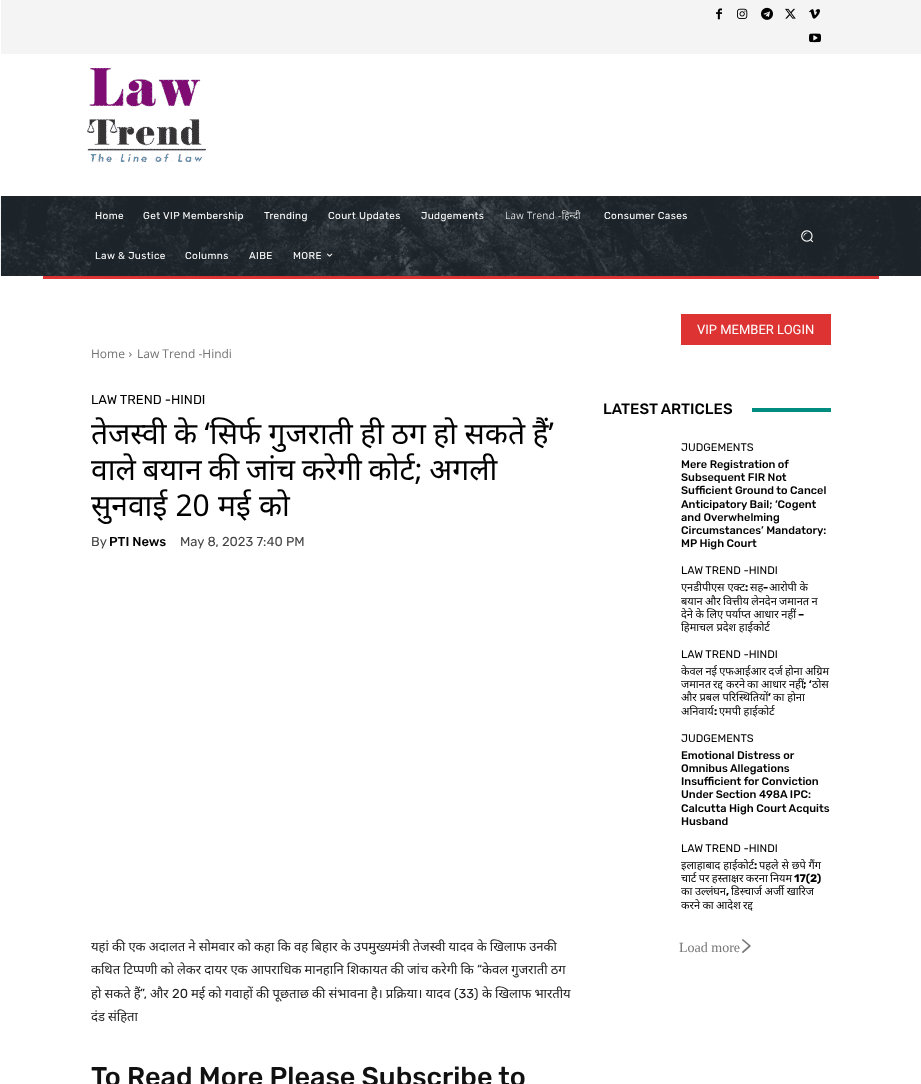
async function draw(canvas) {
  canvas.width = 921;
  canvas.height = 1084;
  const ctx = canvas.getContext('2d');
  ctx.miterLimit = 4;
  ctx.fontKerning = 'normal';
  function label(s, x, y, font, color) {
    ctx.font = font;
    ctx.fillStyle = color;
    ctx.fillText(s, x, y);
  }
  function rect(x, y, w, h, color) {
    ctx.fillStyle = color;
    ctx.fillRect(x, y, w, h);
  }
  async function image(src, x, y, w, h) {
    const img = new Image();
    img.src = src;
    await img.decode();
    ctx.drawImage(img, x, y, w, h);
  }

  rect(0, 0, 921, 1084, '#fff');
  rect(1, 0, 920, 54, '#f4f4f4');
  await image('assets/img1.png', 716, 8, 6, 12);
  await image('assets/img2.png', 737, 8, 11, 11);
  await image('assets/img3.png', 761, 7, 12, 13);
  await image('assets/img4.png', 785, 8, 11, 11);
  await image('assets/img5.png', 809, 9, 11, 10);
  await image('assets/img6.png', 809, 33, 12, 10);
  await image('assets/img7.png', 87, 68, 119, 94);
  rect(1, 196, 920, 80, '#232d35');
  await image('assets/img8.png', 0, 196, 921, 80);
  ctx.letterSpacing = '0.4px';
  label('Home', 95, 219, '10px Rubik', '#fff');
  label('Get VIP Membership', 143, 219, '10px Rubik', '#fff');
  label('Trending', 264, 219, '10px Rubik', '#fff');
  label('Court Updates', 328, 219, '10px Rubik', '#fff');
  label('Judgements', 421, 219, '10px Rubik', '#fff');
  label('Law Trend -हिन्दी', 505, 219, '300 10px Noto Sans', '#fff');
  label('Consumer Cases', 604, 219, '10px Rubik', '#fff');
  label('Law & Justice', 95, 259, '10px Rubik', '#fff');
  label('Columns', 185, 259, '10px Rubik', '#fff');
  label('AIBE', 249, 259, '10px Rubik', '#fff');
  label('MORE', 293, 259, '10px Rubik', '#fff');
  await image('assets/img9.png', 327, 253, 6, 4);
  await image('assets/img10.png', 801, 230, 12, 13);
  rect(43, 276, 836, 3, '#d33');
  rect(681, 314, 150, 31, '#d33');
  ctx.letterSpacing = '0px';
  label('VIP MEMBER LOGIN', 697, 334, '13px Roboto', '#fff');
  label('Home', 91, 358, '12px Open Sans', '#747474');
  await image('assets/img11.png', 129, 352, 3, 5);
  label('Law Trend -Hindi', 137, 358, '12px Open Sans', '#747474');
  label('LAW TREND -HINDI', 91, 404, '13px Rubik', '#000');
  ctx.wordSpacing = '-0.25px';
  label('तेजस्वी के ‘सिर्फ गुजराती ही ठग हो सकते हैं’', 91, 444, '30px Noto Sans', '#000');
  ctx.wordSpacing = '-1px';
  label('वाले बयान की जांच करेगी कोर्ट; अगली', 91, 480, '30px Noto Sans', '#000');
  ctx.wordSpacing = '0.5px';
  label('सुनवाई 20 मई को', 91, 516, '30px Noto Sans', '#000');
  ctx.wordSpacing = '0px';
  label('By', 91, 546, '13px Rubik', '#444');
  label('PTI News', 109, 546, '500 13px Rubik', '#000');
  label('May 8, 2023 7:40 PM', 180, 546, '13px Rubik', '#444');
  ctx.wordSpacing = '-0.25px';
  label('यहां की एक अदालत ने सोमवार को कहा कि वह बिहार के उपमुख्यमंत्री तेजस्वी यादव के खिलाफ उनकी', 91, 951, '13px Noto Sans', '#222');
  label('कथित टिप्पणी को लेकर दायर एक आपराधिक मानहानि शिकायत की जांच करेगी कि', 91, 974, '13px Noto Sans', '#222');
  ctx.wordSpacing = '0px';
  label('“', 477, 974, '13px Rubik', '#222');
  ctx.wordSpacing = '-0.25px';
  label('केवल गुजराती ठग', 482, 974, '13px Noto Sans', '#222');
  label('हो सकते हैं', 91, 998, '13px Noto Sans', '#222');
  ctx.wordSpacing = '0px';
  label('”,', 140, 998, '13px Rubik', '#222');
  label('और', 150, 998, '13px Noto Sans', '#222');
  label('20', 172, 998, '13px Rubik', '#222');
  ctx.wordSpacing = '-0.25px';
  label('मई को गवाहों की पूछताछ की संभावना है। प्रक्रिया। यादव', 191, 998, '13px Noto Sans', '#222');
  ctx.wordSpacing = '0px';
  label('(33)', 454, 998, '13px Rubik', '#222');
  ctx.wordSpacing = '-0.25px';
  label('के खिलाफ भारतीय', 482, 998, '13px Noto Sans', '#222');
  label('दंड संहिता', 91, 1021, '13px Noto Sans', '#222');
  ctx.wordSpacing = '0px';
  label('To Read More Please Subscribe to', 91, 1086, '500 27px Rubik', '#111');
  label('LATEST ARTICLES', 603, 414, '500 15px Rubik', '#000');
  rect(752, 408, 79, 4, '#008d7f');
  label('JUDGEMENTS', 681, 451, '11px Rubik', '#000');
  label('Mere Registration of', 681, 468, '500 11px Rubik', '#000');
  label('Subsequent FIR Not', 681, 481, '500 11px Rubik', '#000');
  label('Sufficient Ground to Cancel', 681, 494, '500 11px Rubik', '#000');
  label('Anticipatory Bail; ‘Cogent', 681, 508, '500 11px Rubik', '#000');
  label('and Overwhelming', 681, 521, '500 11px Rubik', '#000');
  label('Circumstances’ Mandatory:', 681, 534, '500 11px Rubik', '#000');
  label('MP High Court', 681, 547, '500 11px Rubik', '#000');
  label('LAW TREND -HINDI', 681, 574, '11px Rubik', '#000');
  label('एनडीपीएस एक्ट', 681, 591, '11px Noto Sans', '#000');
  label(':', 745, 591, 'bold 11px Rubik', '#000');
  label('सह', 750, 591, '11px Noto Sans', '#000');
  label('-', 763, 591, 'bold 11px Rubik', '#000');
  label('आरोपी के', 769, 591, '11px Noto Sans', '#000');
  ctx.wordSpacing = '-0.5px';
  label('बयान और वित्तीय लेनदेन जमानत न', 681, 605, '11px Noto Sans', '#000');
  ctx.wordSpacing = '-0.25px';
  label('देने के लिए पर्याप्त आधार नहीं', 681, 618, '11px Noto Sans', '#000');
  ctx.wordSpacing = '0px';
  label('–', 798, 618, 'bold 11px Rubik', '#000');
  label('हिमाचल प्रदेश हाईकोर्ट', 681, 631, '11px Noto Sans', '#000');
  label('LAW TREND -HINDI', 681, 658, '11px Rubik', '#000');
  ctx.wordSpacing = '-0.5px';
  label('केवल नई एफआईआर दर्ज होना अग्रिम', 681, 675, '11px Noto Sans', '#000');
  ctx.wordSpacing = '0px';
  label('जमानत', 681, 688, '11px Noto Sans', '#000');
  label('रद्द', 713, 688, '11px Noto Sans', '#000');
  label('करने', 726, 688, '11px Noto Sans', '#000');
  label('का', 747, 688, '11px Noto Sans', '#000');
  label('आधार', 761, 688, '11px Noto Sans', '#000');
  label('नहीं', 789, 688, '11px Noto Sans', '#000');
  label('; ‘', 803, 688, 'bold 11px Rubik', '#000');
  label('ठोस', 812, 688, '11px Noto Sans', '#000');
  label('और प्रबल परिस्थितियों', 681, 701, '11px Noto Sans', '#000');
  label('’', 768, 701, 'bold 11px Rubik', '#000');
  label('का होना', 773, 701, '11px Noto Sans', '#000');
  label('अनिवार्य', 681, 715, '11px Noto Sans', '#000');
  label(':', 714, 715, 'bold 11px Rubik', '#000');
  label('एमपी हाईकोर्ट', 719, 715, '11px Noto Sans', '#000');
  label('JUDGEMENTS', 681, 742, '11px Rubik', '#000');
  label('Emotional Distress or', 681, 759, '500 11px Rubik', '#000');
  label('Omnibus Allegations', 681, 772, '500 11px Rubik', '#000');
  label('Insufficient for Conviction', 681, 785, '500 11px Rubik', '#000');
  label('Under Section 498A IPC:', 681, 798, '500 11px Rubik', '#000');
  label('Calcutta High Court Acquits', 681, 812, '500 11px Rubik', '#000');
  label('Husband', 681, 825, '500 11px Rubik', '#000');
  label('LAW TREND -HINDI', 681, 852, '11px Rubik', '#000');
  label('इलाहाबाद हाईकोर्ट', 681, 869, '11px Noto Sans', '#000');
  label(':', 754, 869, 'bold 11px Rubik', '#000');
  label('पहले से छपे गैंग', 759, 869, '11px Noto Sans', '#000');
  ctx.wordSpacing = '-0.5px';
  label('चार्ट पर हस्ताक्षर करना नियम', 681, 882, '11px Noto Sans', '#000');
  ctx.wordSpacing = '0px';
  label('17(2)', 794, 882, 'bold 11px Rubik', '#000');
  ctx.wordSpacing = '-0.25px';
  label('का उल्लंघन', 681, 895, '11px Noto Sans', '#000');
  ctx.wordSpacing = '0px';
  label(',', 726, 895, 'bold 11px Rubik', '#000');
  ctx.wordSpacing = '-0.25px';
  label('डिस्चार्ज अर्जी खारिज', 731, 895, '11px Noto Sans', '#000');
  ctx.wordSpacing = '-0.5px';
  label('करने का आदेश रद्द', 681, 909, '11px Noto Sans', '#000');
  ctx.wordSpacing = '0px';
  label('Load more', 679, 952, '14px Liberation Serif', '#747474');
  await image('assets/img12.png', 742, 939, 9, 14);
}

draw(document.querySelector('canvas'));
